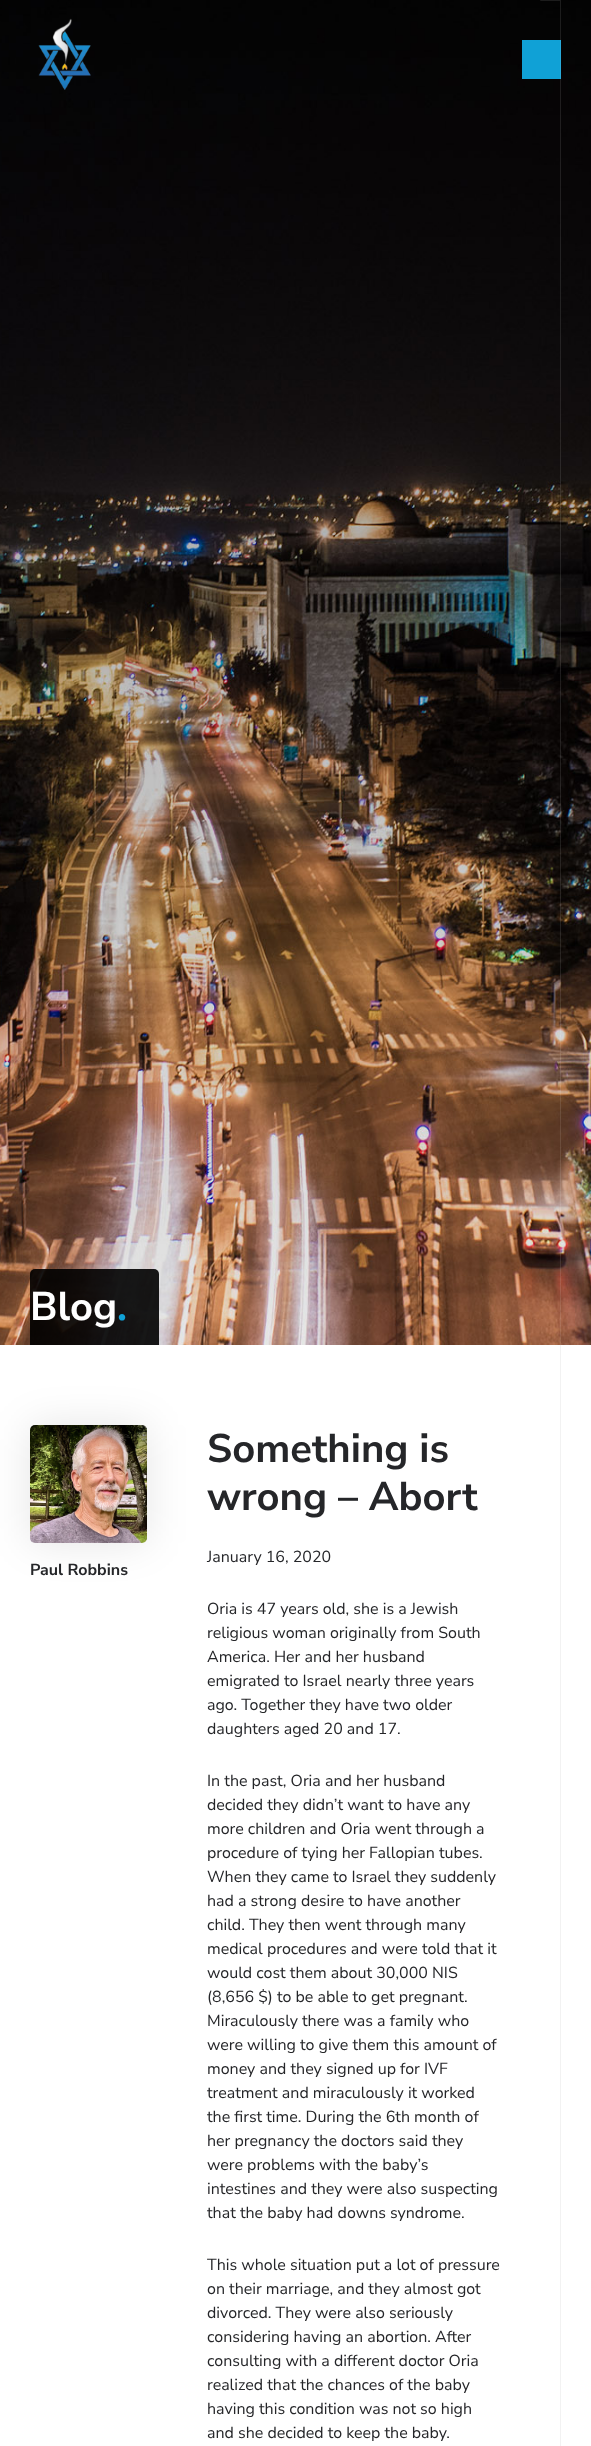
async function draw(canvas) {
  canvas.width = 591;
  canvas.height = 2446;
  const ctx = canvas.getContext('2d');
  ctx.miterLimit = 4;
  ctx.fontKerning = 'normal';
  function label(s, x, y, font, color) {
    ctx.font = font;
    ctx.fillStyle = color;
    ctx.fillText(s, x, y);
  }
  function rect(x, y, w, h, color) {
    ctx.fillStyle = color;
    ctx.fillRect(x, y, w, h);
  }
  async function image(src, x, y, w, h) {
    const img = new Image();
    img.src = src;
    await img.decode();
    ctx.drawImage(img, x, y, w, h);
  }

  rect(0, 0, 591, 2446, '#fff');
  await image('assets/img2.png', 0, 0, 591, 1345);
  await image('assets/img1.png', 38, 18, 53, 72);
  rect(541, 0, 20, 1, '#1c1c1c');
  ctx.beginPath();
  ctx.arc(540.5, 0.5, 0.5, 0, 2 * Math.PI);
  ctx.fill();
  rect(522, 40, 39, 39, '#10a1d6');
  rect(560, 1, 1, 1344, '#ffffff1a');
  ctx.fillStyle = '#000000e6';
  ctx.beginPath();
  ctx.roundRect(30, 1269, 129, 76, [5, 5, 0, 0]);
  ctx.fill();
  label('Blog', 30, 1320, 'bold 40px Nunito Sans', '#fff');
  label('.', 117, 1320, 'bold 40px Liberation Serif', '#10a1d6');
  rect(560, 1345, 1, 1101, '#f2f2f2');
  ctx.fillStyle = '#0000001a';
  ctx.filter = 'blur(20px)';
  ctx.beginPath();
  ctx.roundRect(30, 1425, 117, 118, 5);
  ctx.fill();
  ctx.filter = 'none';
  await image('assets/img3.png', 30, 1425, 117, 118);
  label('Paul Robbins', 30, 1575, 'bold 16px Nunito Sans', '#252629');
  label('Something is', 207, 1462, 'bold 40px Nunito Sans', '#252629');
  label('wrong – Abort', 207, 1510, 'bold 40px Nunito Sans', '#252629');
  label('January 16, 2020', 207, 1562, '16px Nunito Sans', '#252629');
  label('Oria is 47 years old, she is a Jewish', 207, 1614, '16px Nunito Sans', '#252629');
  label('religious woman originally from South', 207, 1638, '16px Nunito Sans', '#252629');
  label('America. Her and her husband', 207, 1662, '16px Nunito Sans', '#252629');
  label('emigrated to Israel nearly three years', 207, 1686, '16px Nunito Sans', '#252629');
  label('ago. Together they have two older', 207, 1710, '16px Nunito Sans', '#252629');
  label('daughters aged 20 and 17.', 207, 1734, '16px Nunito Sans', '#252629');
  label('In the past, Oria and her husband', 207, 1786, '16px Nunito Sans', '#252629');
  label('decided they didn’t want to have any', 207, 1810, '16px Nunito Sans', '#252629');
  label('more children and Oria went through a', 207, 1834, '16px Nunito Sans', '#252629');
  label('procedure of tying her Fallopian tubes.', 207, 1858, '16px Nunito Sans', '#252629');
  label('When they came to Israel they suddenly', 207, 1882, '16px Nunito Sans', '#252629');
  label('had a strong desire to have another', 207, 1906, '16px Nunito Sans', '#252629');
  label('child. They then went through many', 207, 1930, '16px Nunito Sans', '#252629');
  label('medical procedures and were told that it', 207, 1954, '16px Nunito Sans', '#252629');
  label('would cost them about 30,000 NIS', 207, 1978, '16px Nunito Sans', '#252629');
  label('(8,656 $) to be able to get pregnant.', 207, 2002, '16px Nunito Sans', '#252629');
  label('Miraculously there was a family who', 207, 2026, '16px Nunito Sans', '#252629');
  label('were willing to give them this amount of', 207, 2050, '16px Nunito Sans', '#252629');
  label('money and they signed up for IVF', 207, 2074, '16px Nunito Sans', '#252629');
  label('treatment and miraculously it worked', 207, 2098, '16px Nunito Sans', '#252629');
  label('the first time. During the 6th month of', 207, 2122, '16px Nunito Sans', '#252629');
  label('her pregnancy the doctors said they', 207, 2146, '16px Nunito Sans', '#252629');
  label('were problems with the baby’s', 207, 2170, '16px Nunito Sans', '#252629');
  label('intestines and they were also suspecting', 207, 2194, '16px Nunito Sans', '#252629');
  label('that the baby had downs syndrome.', 207, 2218, '16px Nunito Sans', '#252629');
  label('This whole situation put a lot of pressure', 207, 2270, '16px Nunito Sans', '#252629');
  label('on their marriage, and they almost got', 207, 2294, '16px Nunito Sans', '#252629');
  label('divorced. They were also seriously', 207, 2318, '16px Nunito Sans', '#252629');
  label('considering having an abortion. After', 207, 2342, '16px Nunito Sans', '#252629');
  label('consulting with a different doctor Oria', 207, 2366, '16px Nunito Sans', '#252629');
  label('realized that the chances of the baby', 207, 2390, '16px Nunito Sans', '#252629');
  label('having this condition was not so high', 207, 2414, '16px Nunito Sans', '#252629');
  label('and she decided to keep the baby.', 207, 2438, '16px Nunito Sans', '#252629');
}

draw(document.querySelector('canvas'));
